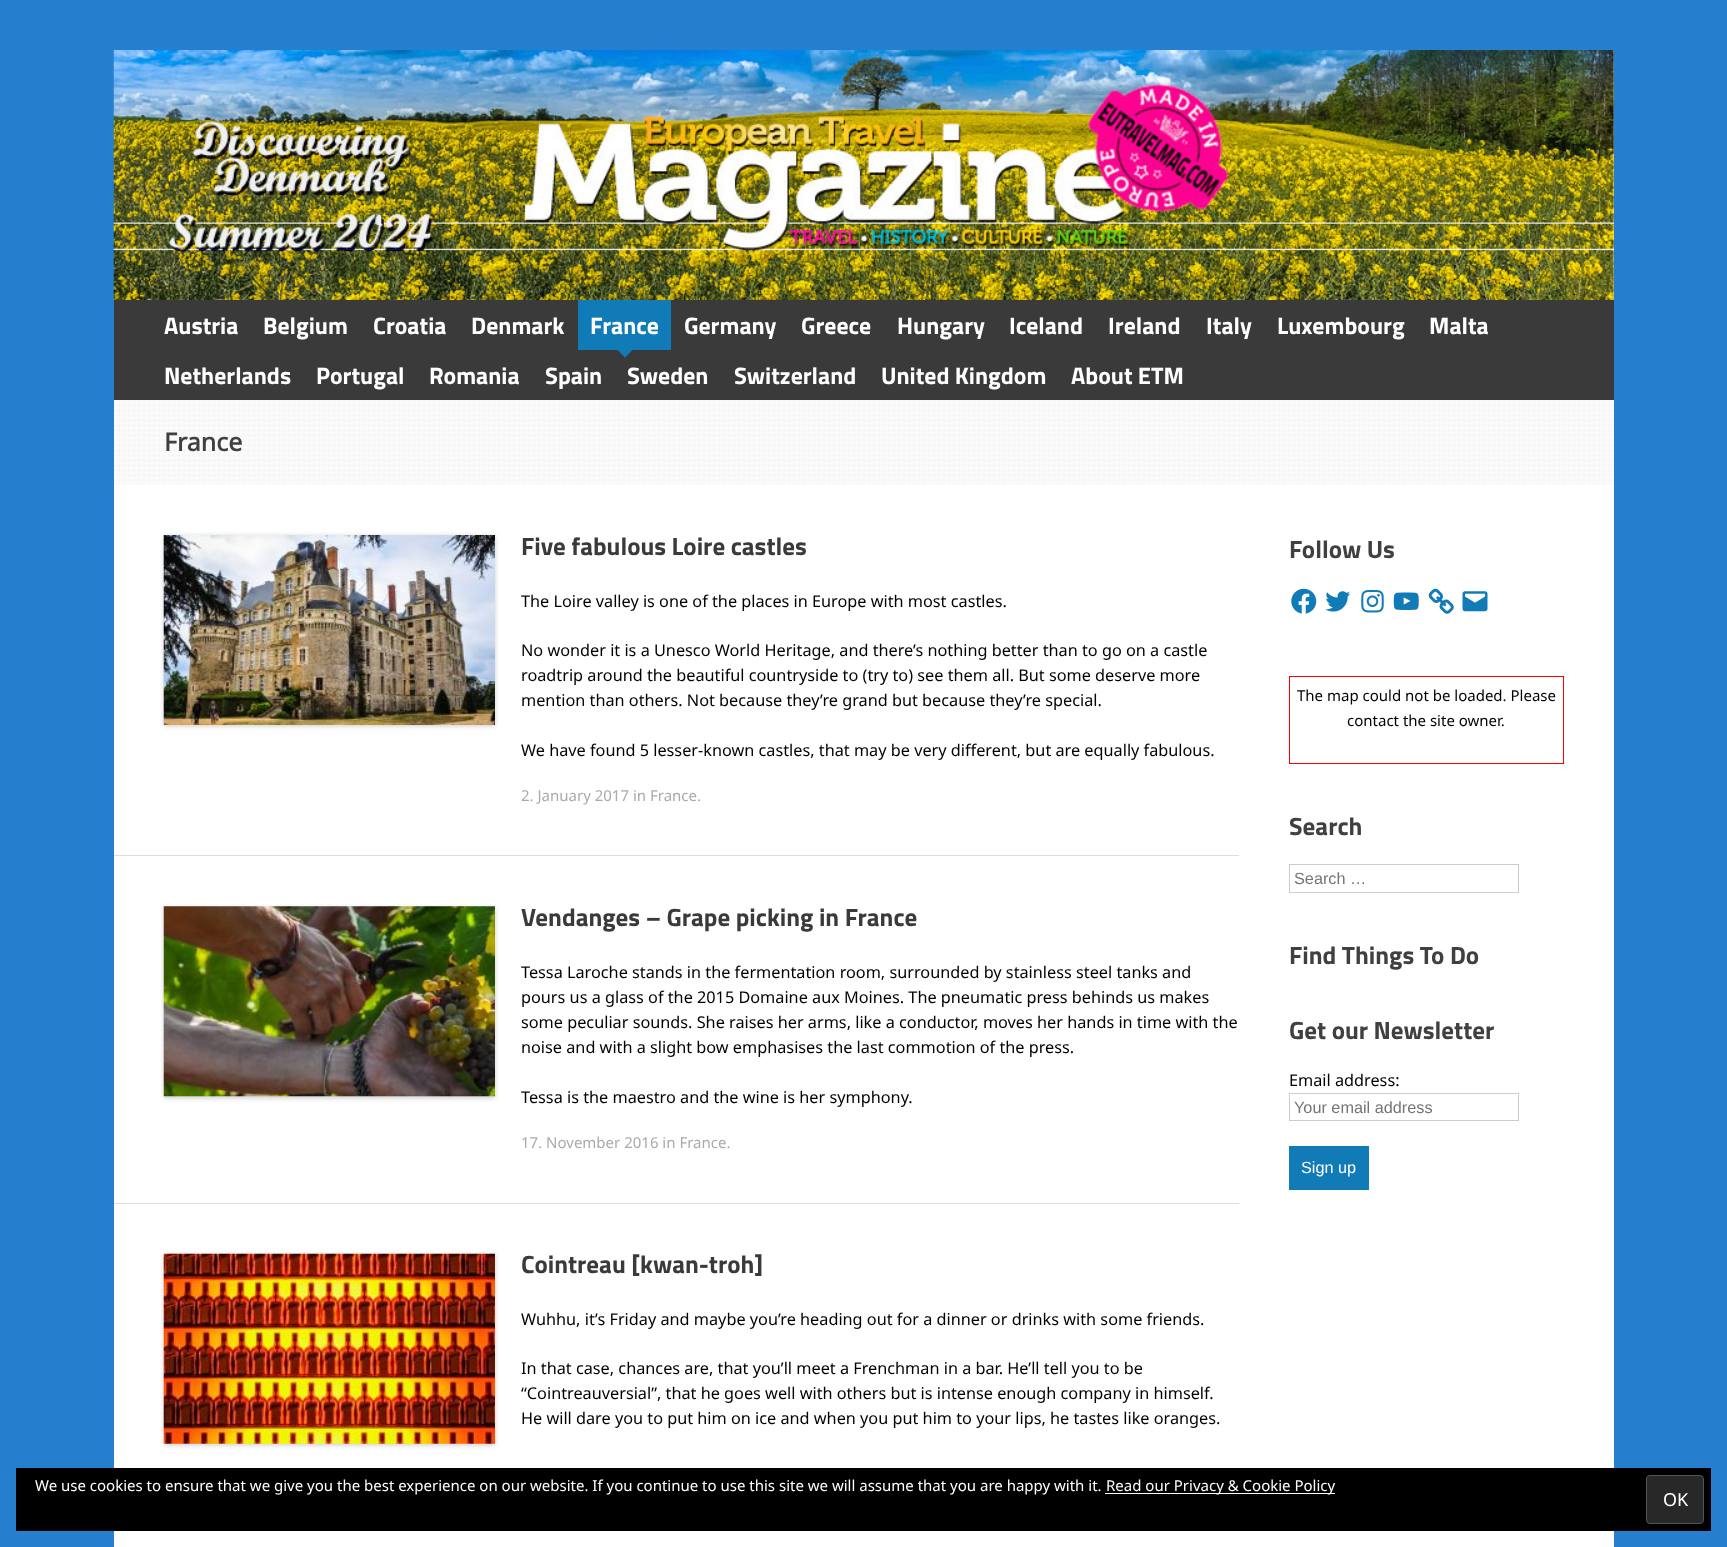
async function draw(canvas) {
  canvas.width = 1727;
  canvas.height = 1547;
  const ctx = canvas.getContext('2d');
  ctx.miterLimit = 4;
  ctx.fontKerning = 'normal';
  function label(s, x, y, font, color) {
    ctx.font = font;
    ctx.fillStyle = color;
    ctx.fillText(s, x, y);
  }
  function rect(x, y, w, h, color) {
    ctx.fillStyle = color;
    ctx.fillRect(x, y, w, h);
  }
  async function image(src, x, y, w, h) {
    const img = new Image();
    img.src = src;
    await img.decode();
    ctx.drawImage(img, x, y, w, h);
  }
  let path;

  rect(0, 0, 1727, 1547, '#257fce');
  rect(114, 50, 1500, 1497, '#fff');
  await image('assets/img1.png', 113, 50, 1501, 250);
  rect(114, 300, 1500, 100, '#3a3a3a');
  label('Austria', 164, 334, 'bold 23.75px Titillium Web', '#fff');
  label('Belgium', 263, 334, 'bold 23.75px Titillium Web', '#fff');
  label('Croatia', 373, 334, 'bold 23.75px Titillium Web', '#fff');
  label('Denmark', 471, 334, 'bold 23.75px Titillium Web', '#fff');
  rect(578, 300, 93, 50, '#117bb8');
  label('France', 590, 334, 'bold 23.75px Titillium Web', '#fff');
  ctx.fillStyle = '#117bb8';
  path = new Path2D('M617.5 350H632.5L625 357.5Z');
  ctx.fill(path);
  label('Germany', 684, 334, 'bold 23.75px Titillium Web', '#fff');
  label('Greece', 801, 334, 'bold 23.75px Titillium Web', '#fff');
  label('Hungary', 897, 334, 'bold 23.75px Titillium Web', '#fff');
  label('Iceland', 1009, 334, 'bold 23.75px Titillium Web', '#fff');
  label('Ireland', 1108, 334, 'bold 23.75px Titillium Web', '#fff');
  label('Italy', 1206, 334, 'bold 23.75px Titillium Web', '#fff');
  label('Luxembourg', 1277, 334, 'bold 23.75px Titillium Web', '#fff');
  label('Malta', 1429, 334, 'bold 23.75px Titillium Web', '#fff');
  label('Netherlands', 164, 384, 'bold 23.75px Titillium Web', '#fff');
  label('Portugal', 316, 384, 'bold 23.75px Titillium Web', '#fff');
  label('Romania', 429, 384, 'bold 23.75px Titillium Web', '#fff');
  label('Spain', 545, 384, 'bold 23.75px Titillium Web', '#fff');
  label('Sweden', 627, 384, 'bold 23.75px Titillium Web', '#fff');
  label('Switzerland', 734, 384, 'bold 23.75px Titillium Web', '#fff');
  label('United Kingdom', 881, 384, 'bold 23.75px Titillium Web', '#fff');
  label('About ETM', 1071, 384, 'bold 23.75px Titillium Web', '#fff');
  await image('assets/img2.png', 113, 400, 1501, 85);
  label('France', 164, 451, 'bold 25px Noto Sans', '#404040');
  rect(114, 855, 1125, 1, '#ddd');
  ctx.fillStyle = '#00000033';
  ctx.filter = 'blur(2.5px)';
  ctx.beginPath();
  ctx.rect(164, 536, 331, 190);
  ctx.fill();
  ctx.filter = 'none';
  await image('assets/img3.png', 163, 535, 332, 190);
  label('Five fabulous Loire castles', 521, 555, 'bold 25px Titillium Web', '#3a3a3a');
  label('The Loire valley is one of the places in Europe with most castles.', 521, 607, '16.25px Noto Sans', '#000');
  label('No wonder it is a Unesco World Heritage, and there’s nothing better than to go on a castle', 521, 656, '16.25px Noto Sans', '#000');
  label('roadtrip around the beautiful countryside to (try to) see them all. But some deserve more', 521, 681, '16.25px Noto Sans', '#000');
  label('mention than others. Not because they’re grand but because they’re special.', 521, 706, '16.25px Noto Sans', '#000');
  label('We have found 5 lesser-known castles, that may be very different, but are equally fabulous.', 521, 756, '16.25px Noto Sans', '#000');
  label('2. January 2017 in France.', 521, 801, '15px Noto Sans', '#aaa');
  rect(114, 1203, 1125, 1, '#ddd');
  ctx.fillStyle = '#00000033';
  ctx.filter = 'blur(2.5px)';
  ctx.beginPath();
  ctx.rect(164, 908, 331, 190);
  ctx.fill();
  ctx.filter = 'none';
  await image('assets/img4.png', 163, 906, 332, 191);
  label('Vendanges – Grape picking in France', 521, 926, 'bold 25px Titillium Web', '#3a3a3a');
  label('Tessa Laroche stands in the fermentation room, surrounded by stainless steel tanks and', 521, 978, '16.25px Noto Sans', '#000');
  label('pours us a glass of the 2015 Domaine aux Moines. The pneumatic press behinds us makes', 521, 1003, '16.25px Noto Sans', '#000');
  label('some peculiar sounds. She raises her arms, like a conductor, moves her hands in time with the', 521, 1028, '16.25px Noto Sans', '#000');
  label('noise and with a slight bow emphasises the last commotion of the press.', 521, 1053, '16.25px Noto Sans', '#000');
  label('Tessa is the maestro and the wine is her symphony.', 521, 1103, '16.25px Noto Sans', '#000');
  label('17. November 2016 in France.', 521, 1148, '15px Noto Sans', '#aaa');
  ctx.fillStyle = '#00000033';
  ctx.filter = 'blur(2.5px)';
  ctx.beginPath();
  ctx.rect(164, 1255, 331, 190);
  ctx.fill();
  ctx.filter = 'none';
  await image('assets/img5.png', 163, 1253, 332, 191);
  label('Cointreau [kwan-troh]', 521, 1273, 'bold 25px Titillium Web', '#3a3a3a');
  label('Wuhhu, it’s Friday and maybe you’re heading out for a dinner or drinks with some friends.', 521, 1325, '16.25px Noto Sans', '#000');
  label('In that case, chances are, that you’ll meet a Frenchman in a bar. He’ll tell you to be', 521, 1374, '16.25px Noto Sans', '#000');
  label('“Cointreauversial”, that he goes well with others but is intense enough company in himself.', 521, 1399, '16.25px Noto Sans', '#000');
  label('He will dare you to put him on ice and when you put him to your lips, he tastes like oranges.', 521, 1424, '16.25px Noto Sans', '#000');
  label('Follow Us', 1289, 558, 'bold 25px Titillium Web', '#404040');
  await image('assets/img6.png', 1291, 588, 26, 26);
  await image('assets/img7.png', 1325, 591, 26, 21);
  await image('assets/img8.png', 1361, 590, 23, 23);
  await image('assets/img9.png', 1393, 592, 26, 19);
  await image('assets/img10.png', 1428, 588, 26, 26);
  await image('assets/img11.png', 1462, 591, 26, 21);
  ctx.strokeStyle = '#f00';
  ctx.strokeRect(1289.5, 676.5, 274, 87);
  label('The map could not be loaded. Please', 1297, 701, '15px Noto Sans', '#000');
  label('contact the site owner.', 1347, 726, '15px Noto Sans', '#000');
  label('Search', 1289, 835, 'bold 25px Titillium Web', '#404040');
  ctx.strokeStyle = '#ccc';
  ctx.strokeRect(1289.5, 864.5, 229, 28);
  label('Search …', 1294, 884, '16.25px Liberation Sans', '#757575');
  label('Find Things To Do', 1289, 964, 'bold 25px Titillium Web', '#404040');
  label('Get our Newsletter', 1289, 1039, 'bold 25px Titillium Web', '#404040');
  label('Email address:', 1289, 1086, '16.25px Noto Sans', '#000');
  ctx.strokeRect(1289.5, 1093.5, 229, 27);
  label('Your email address', 1294, 1113, '16.25px Liberation Sans', '#757575');
  rect(1289, 1146, 80, 44, '#117bb8');
  label('Sign up', 1301, 1173, '16.25px Liberation Sans', '#fff');
  rect(16, 1468, 1695, 63, '#000');
  label('We use cookies to ensure that we give you the best experience on our website. If you continue to use this site we will assume that you are happy with it.', 35, 1491, '15px Noto Sans', '#fff');
  rect(1105, 1493, 230, 1, '#fff');
  label('Read our Privacy & Cookie Policy', 1106, 1491, '15px Noto Sans', '#fff');
  ctx.fillStyle = '#282828';
  ctx.beginPath();
  ctx.roundRect(1646.5, 1475.5, 57, 48, 3.5);
  ctx.fill();
  ctx.strokeStyle = '#535353';
  ctx.stroke();
  label('OK', 1663, 1506, '18px Noto Sans', '#fff');
}

draw(document.querySelector('canvas'));
